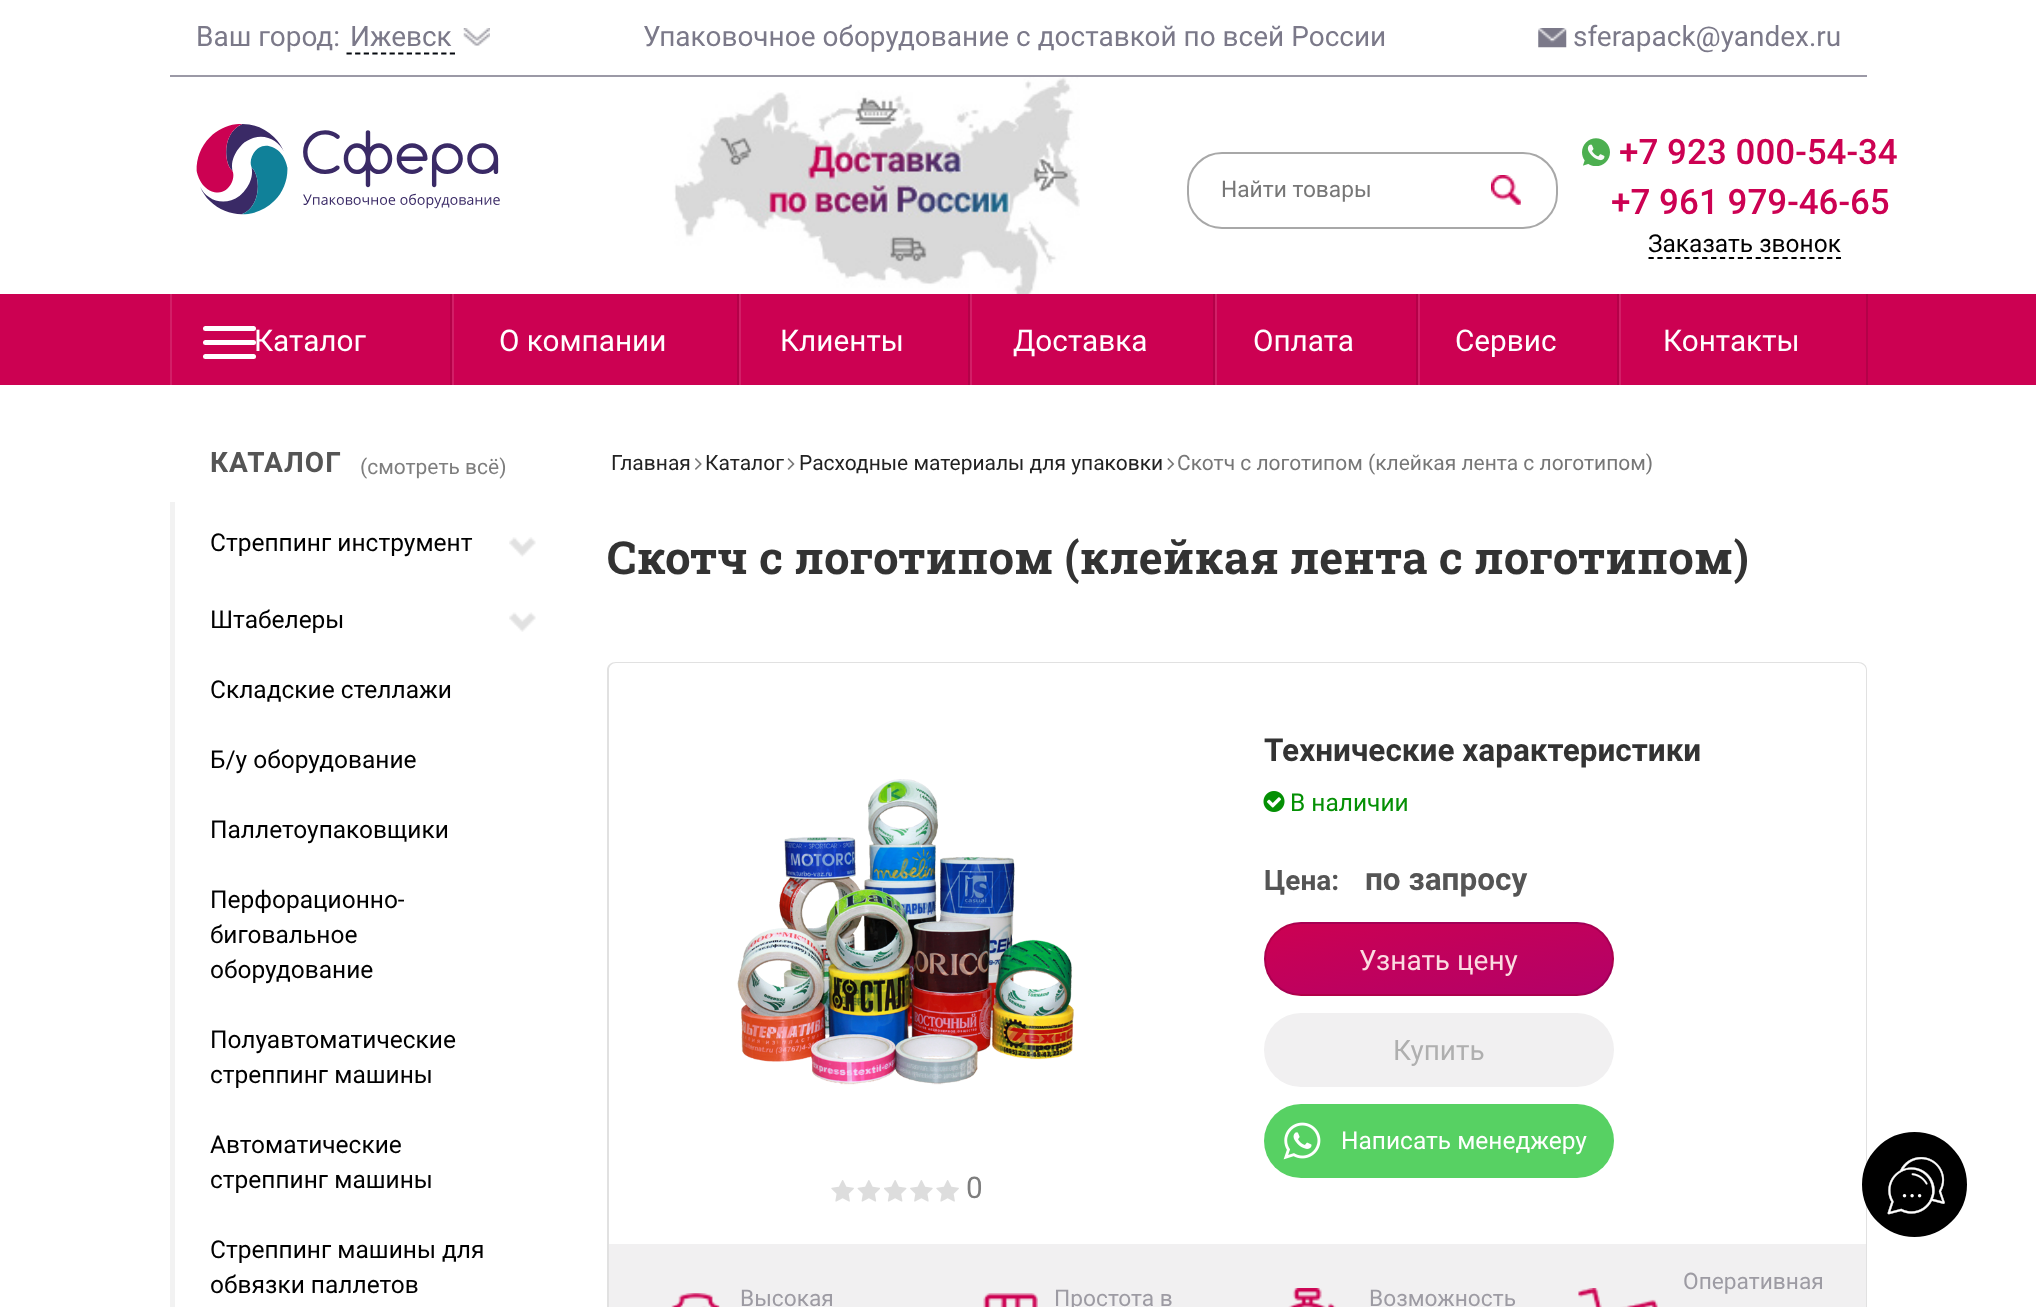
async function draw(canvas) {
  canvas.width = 2036;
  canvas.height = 1307;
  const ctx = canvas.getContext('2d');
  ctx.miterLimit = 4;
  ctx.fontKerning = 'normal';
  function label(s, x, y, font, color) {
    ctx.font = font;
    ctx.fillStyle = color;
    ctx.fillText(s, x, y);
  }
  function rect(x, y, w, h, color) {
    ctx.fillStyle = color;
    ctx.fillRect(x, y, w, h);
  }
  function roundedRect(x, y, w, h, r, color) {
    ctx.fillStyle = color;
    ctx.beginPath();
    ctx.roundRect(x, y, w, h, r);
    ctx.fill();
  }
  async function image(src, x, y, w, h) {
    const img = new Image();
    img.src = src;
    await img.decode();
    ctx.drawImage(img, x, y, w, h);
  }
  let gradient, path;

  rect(0, 0, 2036, 1307, '#fff');
  rect(170, 75, 1697, 2, '#9b99a6');
  label('Ваш город:', 196, 46, '28px Roboto', '#7b7989');
  label('Ижевск', 350, 46, '28px Roboto', '#7b7989');
  path = new Path2D('M346.5 53.5H455');
  ctx.strokeStyle = '#05090f';
  ctx.lineWidth = 1.8;
  ctx.setLineDash([5.25, 3.36]);
  ctx.stroke(path);
  await image('assets/img1.png', 463, 28, 27, 18);
  label('Упаковочное оборудование с доставкой по всей России', 643, 46, '28px Roboto', '#7b7989');
  await image('assets/img2.png', 1538, 28, 29, 20);
  label('sferapack@yandex.ru', 1573, 46, '28px Roboto', '#7b7989');
  await image('assets/img3.png', 196, 124, 304, 91);
  await image('assets/img4.png', 673, 77, 407, 217);
  ctx.beginPath();
  ctx.roundRect(1188, 153, 369, 75, 34);
  ctx.strokeStyle = '#a8a8a8';
  ctx.lineWidth = 2;
  ctx.setLineDash([]);
  ctx.stroke();
  label('Найти товары', 1221, 197, '22.75px Roboto', '#777');
  await image('assets/img5.png', 1491, 175, 30, 30);
  await image('assets/img6.png', 1582, 138, 28, 28);
  label('+7 923 000-54-34', 1619, 164, '500 35px Roboto', '#cc0152');
  label('+7 961 979-46-65', 1611, 214, '500 35px Roboto', '#cc0152');
  label('Заказать звонок', 1648, 252, '24.5px Roboto', '#000');
  path = new Path2D('M1648.5 258H1841');
  ctx.strokeStyle = '#000';
  ctx.lineWidth = 1.8;
  ctx.setLineDash([5.25, 3.68]);
  ctx.stroke(path);
  rect(0, 294, 2036, 91, '#cc0152');
  rect(450, 294, 2, 91, '#b40148');
  rect(170, 294, 2, 91, '#d21f67');
  roundedRect(203, 326, 53, 5, 2.5, '#fff');
  roundedRect(203, 340, 53, 5, 2.5, '#fff');
  roundedRect(203, 354, 53, 5, 2.5, '#fff');
  label('Каталог', 254, 351, '29.75px Roboto', '#fff');
  rect(737, 294, 2, 91, '#b40148');
  rect(452, 294, 2, 91, '#d21f67');
  label('О компании', 499, 351, '29.75px Roboto', '#fff');
  rect(968, 294, 2, 91, '#b40148');
  rect(739, 294, 2, 91, '#d21f67');
  label('Клиенты', 780, 351, '29.75px Roboto', '#fff');
  rect(1213, 294, 2, 91, '#b40148');
  rect(970, 294, 2, 91, '#d21f67');
  label('Доставка', 1013, 351, '29.75px Roboto', '#fff');
  rect(1416, 294, 2, 91, '#b40148');
  rect(1215, 294, 2, 91, '#d21f67');
  label('Оплата', 1253, 351, '29.75px Roboto', '#fff');
  rect(1617, 294, 2, 91, '#b40148');
  rect(1418, 294, 2, 91, '#d21f67');
  label('Сервис', 1455, 351, '29.75px Roboto', '#fff');
  rect(1866, 294, 2, 91, '#b40148');
  rect(1619, 294, 2, 91, '#d21f67');
  label('Контакты', 1663, 351, '29.75px Roboto', '#fff');
  ctx.letterSpacing = '1px';
  label('КАТАЛОГ', 210, 472, 'bold 28px Roboto', '#555');
  ctx.letterSpacing = '0px';
  label('(смотреть всё)', 360, 474, '21px Roboto', '#7e7e7e');
  rect(170, 502, 5, 805, '#f2f2f2');
  label('Стреппинг инструмент', 210, 551, '24.5px Roboto', '#000');
  await image('assets/img7.png', 509, 537, 27, 20);
  label('Штабелеры', 210, 628, '24.5px Roboto', '#000');
  await image('assets/img8.png', 509, 612, 27, 20);
  label('Складские стеллажи', 210, 698, '24.5px Roboto', '#000');
  label('Б/у оборудование', 210, 768, '24.5px Roboto', '#000');
  label('Паллетоупаковщики', 210, 838, '24.5px Roboto', '#000');
  label('Перфорационно-', 210, 908, '24.5px Roboto', '#000');
  label('биговальное', 210, 943, '24.5px Roboto', '#000');
  label('оборудование', 210, 978, '24.5px Roboto', '#000');
  label('Полуавтоматические', 210, 1048, '24.5px Roboto', '#000');
  label('стреппинг машины', 210, 1083, '24.5px Roboto', '#000');
  label('Автоматические', 210, 1153, '24.5px Roboto', '#000');
  label('стреппинг машины', 210, 1188, '24.5px Roboto', '#000');
  label('Стреппинг машины для', 210, 1258, '24.5px Roboto', '#000');
  label('обвязки паллетов', 210, 1293, '24.5px Roboto', '#000');
  label('Главная', 611, 470, '21px Roboto', '#222');
  await image('assets/img9.png', 695, 458, 7, 12);
  label('Каталог', 705, 470, '21px Roboto', '#222');
  await image('assets/img10.png', 787, 458, 8, 12);
  label('Расходные материалы для упаковки', 799, 470, '21px Roboto', '#222');
  await image('assets/img11.png', 1167, 458, 8, 12);
  label('Скотч с логотипом (клейкая лента с логотипом)', 1177, 470, '21px Roboto', '#777');
  label('Скотч с логотипом (клейкая лента с логотипом)', 607, 574, 'bold 45.5px Roboto Slab', '#333');
  ctx.fillStyle = '#e1e1e1';
  path = new Path2D('M616 662H1858C1863 662 1867 665 1867 670V1244H607V670C607 665 611 662 616 662ZM616 663H1858C1862 663 1866 666 1866 670V1244H609V670C609 666 612 663 616 663Z');
  ctx.fill(path, 'evenodd');
  label('Технические характеристики', 1264, 761, 'bold 31.5px Roboto', '#333');
  await image('assets/img12.png', 1263, 791, 22, 21);
  label('В наличии', 1290, 811, '24.5px Roboto', '#049004');
  label('Цена:', 1264, 890, 'bold 28px Roboto', '#555');
  label('по запросу', 1365, 890, 'bold 31.5px Roboto', '#555');
  ctx.save();
  ctx.beginPath();
  ctx.roundRect(1264, 922, 350, 74, 37);
  ctx.clip();
  gradient = ctx.createLinearGradient(1425, 822, 1452, 956);
  gradient.addColorStop(0, '#cc0152');
  gradient.addColorStop(1, '#b30168');
  ctx.fillStyle = gradient;
  ctx.fillRect(1289, 922, 300, 2);
  gradient = ctx.createLinearGradient(1078, 892, 1106, 1026);
  gradient.addColorStop(0, '#cc0152');
  gradient.addColorStop(1, '#b30168');
  ctx.fillStyle = gradient;
  ctx.fillRect(1264, 950, 1, 18);
  gradient = ctx.createLinearGradient(1425, 892, 1452, 1026);
  gradient.addColorStop(0, '#cc0152');
  gradient.addColorStop(1, '#b30168');
  ctx.fillStyle = gradient;
  ctx.fillRect(1265, 924, 347, 70);
  gradient = ctx.createLinearGradient(1771, 892, 1799, 1026);
  gradient.addColorStop(0, '#cc0152');
  gradient.addColorStop(1, '#b30168');
  ctx.fillStyle = gradient;
  ctx.fillRect(1612, 947, 2, 24);
  gradient = ctx.createLinearGradient(1425, 962, 1452, 1096);
  gradient.addColorStop(0, '#cc0152');
  gradient.addColorStop(1, '#b30168');
  ctx.fillStyle = gradient;
  ctx.fillRect(1289, 994, 300, 2);
  ctx.restore();
  ctx.beginPath();
  ctx.roundRect(1265, 923, 348, 72, 36);
  ctx.strokeStyle = '#0000001f';
  ctx.lineWidth = 2;
  ctx.setLineDash([]);
  ctx.stroke();
  label('Узнать цену', 1359, 970, '28px Roboto', '#fbdbe1');
  roundedRect(1264, 1013, 350, 74, 37, '#f1f0f1');
  label('Купить', 1393, 1060, '28px Roboto', '#afafaf');
  roundedRect(1264, 1104, 350, 74, 37, '#57d163');
  await image('assets/img13.png', 1283, 1122, 38, 38);
  label('Написать менеджеру', 1341, 1149, '24.5px Roboto', '#fff');
  await image('assets/img14.png', 737, 779, 337, 306);
  await image('assets/img15.png', 831, 1180, 23, 22);
  await image('assets/img16.png', 857, 1180, 23, 22);
  await image('assets/img17.png', 884, 1180, 23, 22);
  await image('assets/img18.png', 910, 1180, 23, 22);
  await image('assets/img15.png', 936, 1180, 23, 22);
  label('0', 966, 1198, '29.75px Roboto', '#7e7e7e');
  rect(609, 1244, 1257, 63, '#f1f0f1');
  ctx.fillStyle = '#e1e1e1';
  path = new Path2D('M607 1244H1867V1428C1867 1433 1863 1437 1858 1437H616C611 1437 607 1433 607 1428ZM609 1244H1866V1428C1866 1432 1862 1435 1858 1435H616C612 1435 609 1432 609 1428Z');
  ctx.fill(path, 'evenodd');
  label('Оперативная', 1683, 1289, '22.75px Roboto', '#9d9ba3');
  await image('assets/img19.png', 1578, 1288, 80, 19);
  await image('assets/img20.png', 671, 1293, 49, 14);
  label('Высокая', 740, 1306, '22.75px Roboto', '#9d9ba3');
  await image('assets/img21.png', 983, 1293, 55, 14);
  label('Простота в', 1054, 1306, '22.75px Roboto', '#9d9ba3');
  await image('assets/img22.png', 1288, 1288, 48, 19);
  label('Возможность', 1369, 1306, '22.75px Roboto', '#9d9ba3');
  ctx.fillStyle = '#000';
  ctx.beginPath();
  ctx.arc(1914.5, 1184.5, 50.5, 0, 2 * Math.PI);
  ctx.fill();
  ctx.strokeStyle = '#000';
  ctx.lineWidth = 4;
  ctx.stroke();
  await image('assets/img23.png', 1887, 1157, 58, 58);
}

draw(document.querySelector('canvas'));
